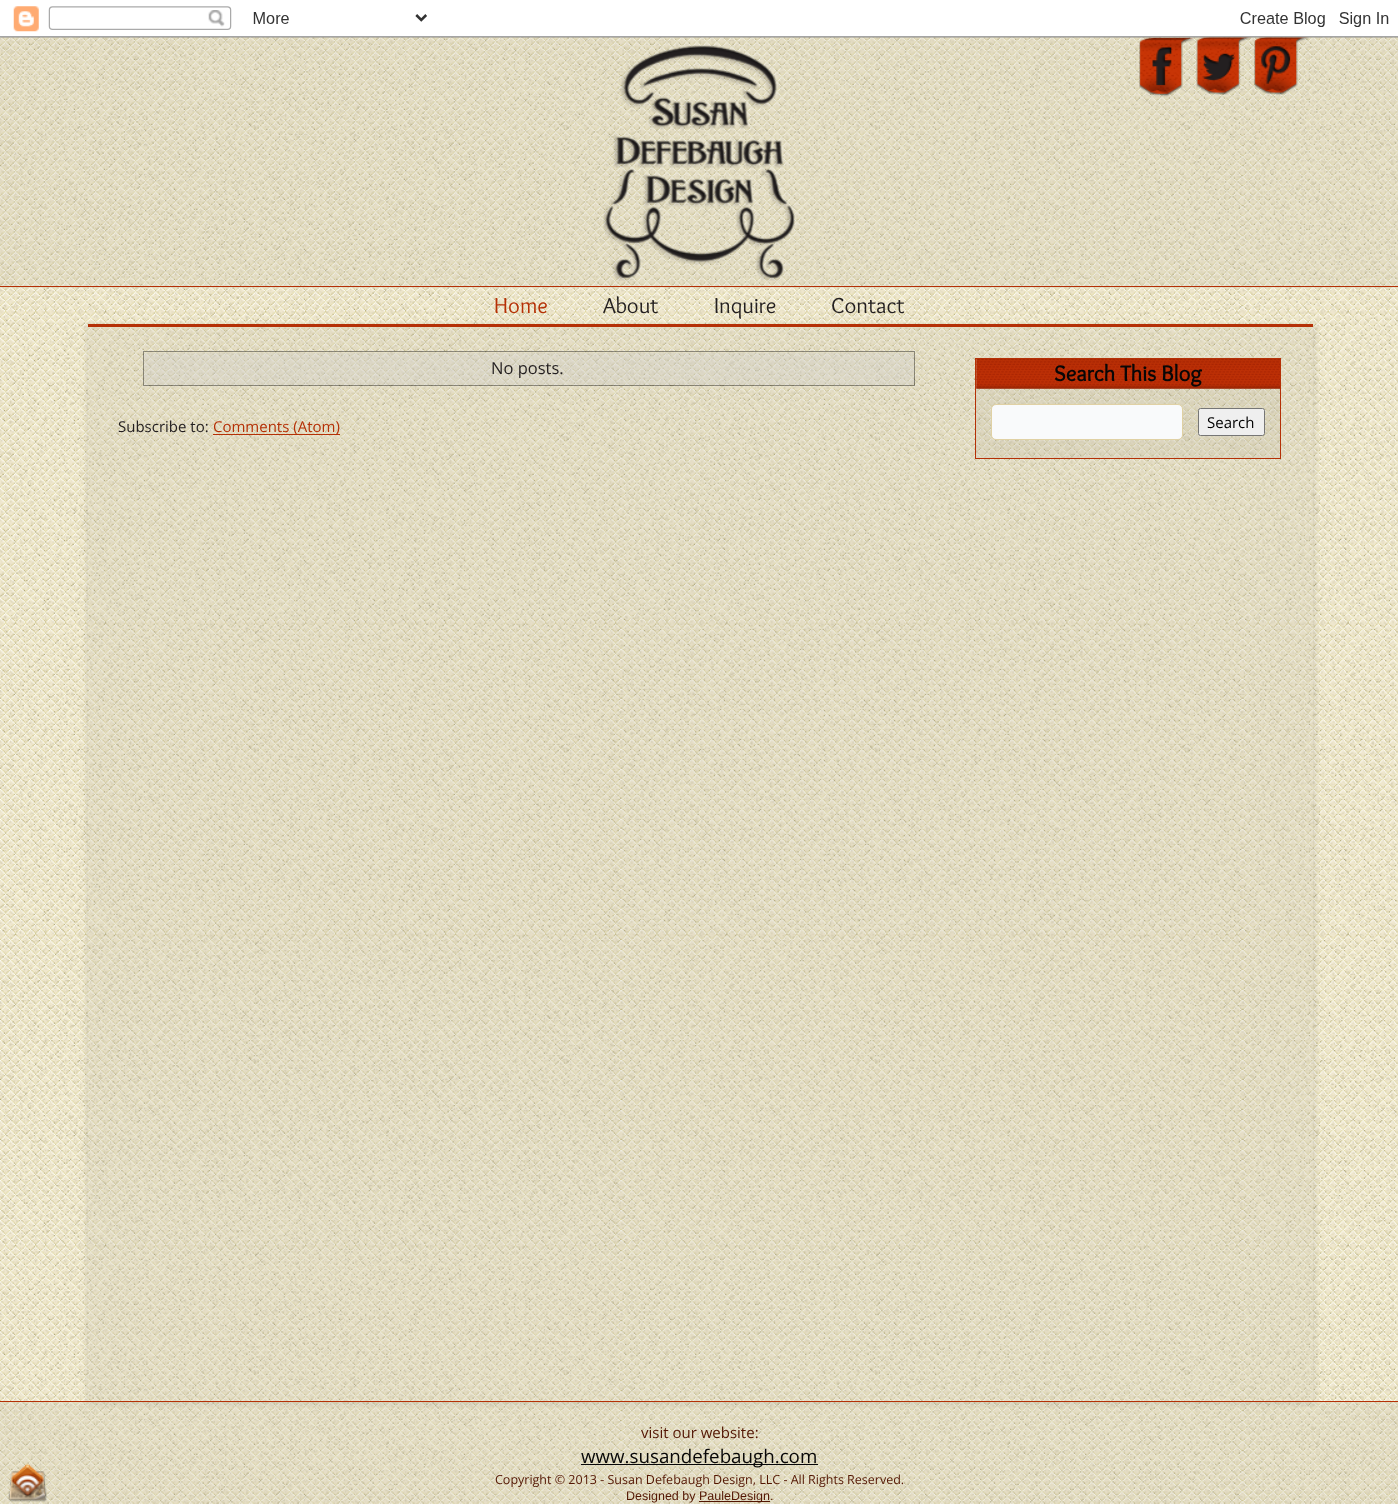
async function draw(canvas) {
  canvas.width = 1398;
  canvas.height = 1504;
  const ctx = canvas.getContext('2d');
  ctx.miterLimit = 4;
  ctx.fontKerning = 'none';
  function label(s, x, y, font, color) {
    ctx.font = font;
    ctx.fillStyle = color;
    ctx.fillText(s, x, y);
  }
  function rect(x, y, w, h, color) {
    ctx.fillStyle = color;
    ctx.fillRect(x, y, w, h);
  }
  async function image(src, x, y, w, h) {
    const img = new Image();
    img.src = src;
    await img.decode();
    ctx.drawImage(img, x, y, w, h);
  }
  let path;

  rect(0, 0, 1398, 1504, '#fff');
  await image('assets/img2.png', 0, 37, 1398, 1467);
  await image('assets/img1.png', 0, 6, 1398, 32);
  rect(0, 38, 1398, 250, '#beb9a533');
  rect(0, 286, 1398, 1, '#b53006');
  await image('assets/img3.png', 603, 44, 194, 237);
  await image('assets/img4.png', 1139, 37, 55, 60);
  await image('assets/img5.png', 1196, 37, 55, 58);
  await image('assets/img6.png', 1254, 37, 55, 58);
  ctx.save();
  path = new Path2D('M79 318H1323V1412H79ZM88 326H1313V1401H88Z');
  ctx.clip(path, 'evenodd');
  ctx.fillStyle = '#00000014';
  ctx.filter = 'blur(2px)';
  ctx.beginPath();
  ctx.rect(86, 325, 1230, 1080);
  ctx.fill();
  ctx.filter = 'none';
  ctx.restore();
  rect(88, 324, 1225, 3, '#b53006');
  label('Home', 494, 313, '22.5px Overlock', '#b53006');
  label('About', 603, 313, '22.5px Overlock', '#231f20');
  label('Inquire', 714, 313, '22.5px Overlock', '#231f20');
  label('Contact', 831, 313, '22.5px Overlock', '#231f20');
  rect(88, 327, 1225, 1074, '#bfb9a633');
  ctx.strokeStyle = '#00000066';
  ctx.strokeRect(143.5, 351.5, 771, 34);
  rect(144, 353, 770, 32, '#cccccc52');
  label('No posts.', 491, 374, '16.5px Open Sans', '#231f20');
  label('Subscribe to:', 118, 432, '15px Open Sans', '#231f20');
  rect(213, 434, 127, 1, '#b53006');
  label('Comments (Atom)', 213, 432, '15px Open Sans', '#b53006');
  ctx.strokeStyle = '#b53006';
  ctx.strokeRect(975.5, 358.5, 305, 100);
  await image('assets/img7.png', 976, 359, 304, 30);
  label('Search This Blog', 1054, 381, 'bold 22.5px Overlock', '#080707');
  rect(976, 389, 304, 69, '#bfb9a633');
  ctx.fillStyle = '#f9fafb';
  ctx.beginPath();
  ctx.roundRect(991.5, 404.5, 191, 35, 4.5);
  ctx.fill();
  ctx.strokeStyle = '#e0d1a4';
  ctx.stroke();
  ctx.fillStyle = '#efefef';
  ctx.beginPath();
  ctx.roundRect(1198.5, 408.5, 66, 27, 2);
  ctx.fill();
  ctx.strokeStyle = '#767676';
  ctx.stroke();
  label('Search', 1207, 428, '15px Open Sans', '#000');
  rect(0, 1402, 1398, 102, '#bfb9a633');
  rect(0, 1401, 1398, 1, '#b53006');
  await image('assets/img8.png', 8, 1463, 39, 39);
  label('visit our website:', 641, 1438, '15px Open Sans', '#531603');
  rect(581, 1464, 237, 1, '#080707');
  label('www.susandefebaugh.com', 581, 1463, '18.75px Open Sans', '#080707');
  label('Copyright © 2013 - Susan Defebaugh Design, LLC - All Rights Reserved.', 495, 1484, '12.5px Open Sans', '#531603');
  label('Designed by', 626, 1500, '12.5px Liberation Sans', '#531603');
  rect(699, 1501, 71, 1, '#531603');
  label('PauleDesign.', 699, 1500, '12.5px Liberation Sans', '#531603');
}

draw(document.querySelector('canvas'));
